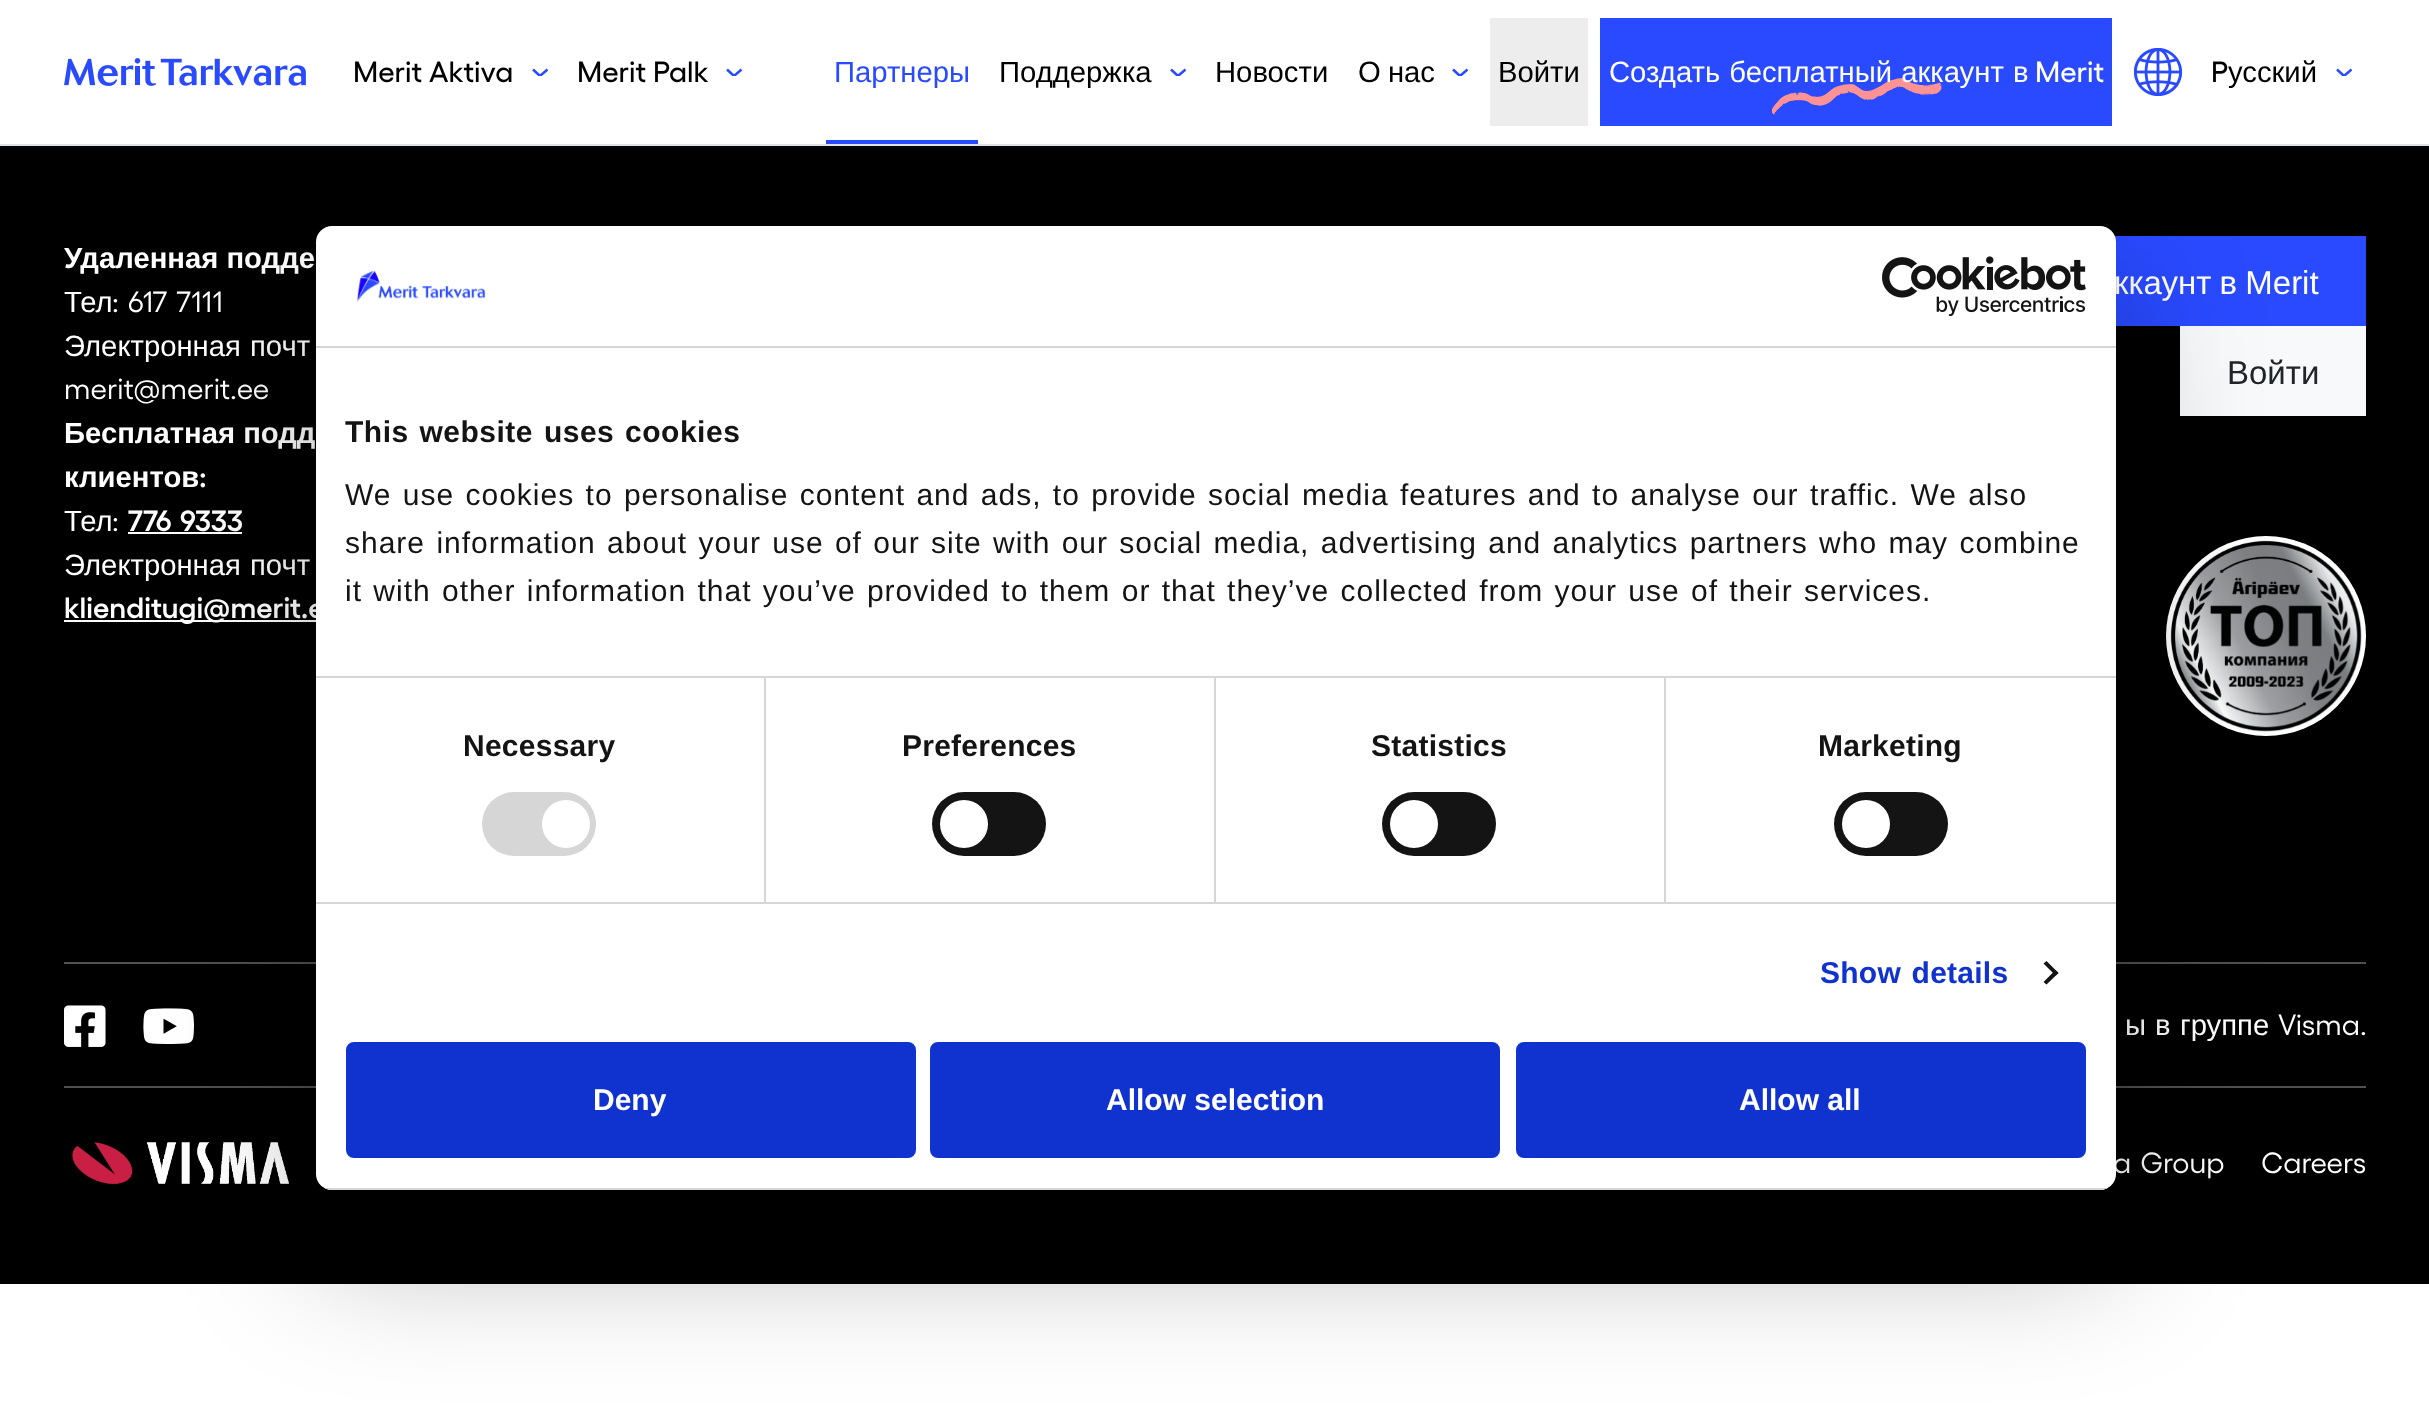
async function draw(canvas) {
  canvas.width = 2429;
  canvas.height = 1416;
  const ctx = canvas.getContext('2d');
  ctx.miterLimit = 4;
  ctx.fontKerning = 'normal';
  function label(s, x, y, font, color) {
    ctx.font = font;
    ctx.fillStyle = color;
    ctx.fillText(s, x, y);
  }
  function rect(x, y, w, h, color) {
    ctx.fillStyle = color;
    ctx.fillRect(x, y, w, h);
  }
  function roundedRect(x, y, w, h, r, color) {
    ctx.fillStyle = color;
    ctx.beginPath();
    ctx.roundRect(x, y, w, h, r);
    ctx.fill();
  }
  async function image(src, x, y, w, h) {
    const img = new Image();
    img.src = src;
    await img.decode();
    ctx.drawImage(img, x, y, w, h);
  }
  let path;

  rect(0, 0, 2429, 1416, '#fff');
  rect(0, 144, 2429, 2, '#dee2e6');
  await image('assets/img1.png', 64, 58, 242, 28);
  label('Merit Aktiva', 353, 82, '500 29.25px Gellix', '#000');
  ctx.save();
  ctx.beginPath();
  ctx.rect(532, 68, 16, 8);
  ctx.clip();
  path = new Path2D('M547.5 69.5L540 76L533 69.5');
  ctx.strokeStyle = '#294aff';
  ctx.lineWidth = 2.5;
  ctx.stroke(path);
  ctx.restore();
  label('Merit Palk', 577, 82, '500 29.25px Gellix', '#000');
  ctx.save();
  ctx.beginPath();
  ctx.rect(726, 68, 18, 8);
  ctx.clip();
  path = new Path2D('M741.5 69.5L734 76L727 69.5');
  ctx.strokeStyle = '#294aff';
  ctx.lineWidth = 2.5;
  ctx.stroke(path);
  ctx.restore();
  label('Партнеры', 834, 82, '29.25px Liberation Sans', '#294aff');
  rect(826, 140, 152, 4, '#294aff');
  label('Поддержка', 999, 82, '29.25px Liberation Sans', '#000');
  ctx.save();
  ctx.beginPath();
  ctx.rect(1170, 68, 16, 8);
  ctx.clip();
  path = new Path2D('M1185.5 69.5L1178 76L1171 69.5');
  ctx.strokeStyle = '#294aff';
  ctx.lineWidth = 2.5;
  ctx.stroke(path);
  ctx.restore();
  label('Новости', 1215, 82, '29.25px Liberation Sans', '#000');
  ctx.wordSpacing = '-1px';
  label('О нас', 1358, 82, '29.25px Liberation Sans', '#000');
  ctx.save();
  ctx.beginPath();
  ctx.rect(1452, 68, 16, 8);
  ctx.clip();
  path = new Path2D('M1467.5 69.5L1460 76L1453 69.5');
  ctx.strokeStyle = '#294aff';
  ctx.lineWidth = 2.5;
  ctx.stroke(path);
  ctx.restore();
  rect(1490, 18, 98, 108, '#ededed');
  ctx.wordSpacing = '0px';
  label('Войти', 1498, 82, '29.25px Liberation Sans', '#000');
  rect(1600, 18, 512, 108, '#294aff');
  await image('assets/img2.png', 1772, 78, 170, 37);
  ctx.wordSpacing = '1px';
  label('Создать бесплатный аккаунт в', 1609, 82, '29.25px Liberation Sans', '#fff');
  ctx.wordSpacing = '0px';
  label('Merit', 2035, 82, '500 29.25px Gellix', '#fff');
  await image('assets/img3.png', 2134, 48, 48, 48);
  label('P', 2211, 82, '500 29.25px Gellix', '#000');
  label('усский', 2228, 82, '29.25px Liberation Sans', '#000');
  ctx.save();
  ctx.beginPath();
  ctx.rect(2336, 68, 16, 8);
  ctx.clip();
  path = new Path2D('M2351.5 69.5L2344 76L2337 69.5');
  ctx.strokeStyle = '#294aff';
  ctx.lineWidth = 2.5;
  ctx.stroke(path);
  ctx.restore();
  rect(0, 146, 2429, 1138, '#000');
  label('Удаленная подде', 64, 268, 'bold 29.25px Liberation Sans', '#fff');
  label('Тел', 64, 312, '29.25px Liberation Sans', '#fff');
  label(':', 112, 312, '29.25px Gellix', '#fff');
  ctx.wordSpacing = '2px';
  label('617 7111', 128, 312, '29.25px Gellix', '#fff');
  ctx.wordSpacing = '1px';
  label('Электронная почт', 64, 356, '29.25px Liberation Sans', '#fff');
  ctx.wordSpacing = '0px';
  label('merit@merit.ee', 64, 399, '29.25px Gellix', '#fff');
  label('Бесплатная подд', 64, 443, 'bold 29.25px Liberation Sans', '#fff');
  label('клиентов', 64, 487, 'bold 29.25px Liberation Sans', '#fff');
  label(':', 199, 487, '600 29.25px Gellix', '#fff');
  label('Тел', 64, 531, '29.25px Liberation Sans', '#fff');
  label(':', 112, 531, '29.25px Gellix', '#fff');
  ctx.wordSpacing = '2px';
  label('776 9333', 128, 531, '600 29.25px Gellix', '#fff');
  rect(128, 532, 114, 2, '#fff');
  ctx.wordSpacing = '1px';
  label('Электронная почт', 64, 575, '29.25px Liberation Sans', '#fff');
  rect(64, 620, 252, 2, '#fff');
  ctx.wordSpacing = '0px';
  label('klienditugi@merit.e', 64, 618, '600 29.25px Gellix', '#fff');
  rect(2114, 236, 252, 90, '#294aff');
  ctx.wordSpacing = '-1px';
  label('ккаунт в Merit', 2114, 294, '33px Liberation Sans', '#fff');
  rect(2180, 326, 186, 90, '#f8f9fa');
  ctx.wordSpacing = '0px';
  label('Войти', 2227, 384, '33px Liberation Sans', '#212529');
  await image('assets/img4.png', 2166, 536, 200, 200);
  rect(64, 962, 2302, 2, '#505050');
  await image('assets/img5.png', 64, 1005, 42, 42);
  await image('assets/img6.png', 143, 1008, 51, 36);
  label('ы', 2125, 1035, '29.25px Liberation Sans', '#fff');
  label('в', 2155, 1035, '29.25px Liberation Sans', '#fff');
  label('группе', 2180, 1035, '29.25px Liberation Sans', '#fff');
  label('Visma.', 2278, 1035, '29.25px Gellix', '#fff');
  rect(64, 1086, 2302, 2, '#505050');
  await image('assets/img7.png', 72, 1142, 217, 43);
  ctx.wordSpacing = '2px';
  label('a Group', 2113, 1173, '29.25px Gellix', '#fff');
  ctx.wordSpacing = '0px';
  label('Careers', 2261, 1173, '29.25px Gellix', '#fff');
  ctx.fillStyle = '#0000004d';
  ctx.filter = 'blur(68px)';
  ctx.beginPath();
  ctx.roundRect(316, 290, 1800, 964, 16);
  ctx.fill();
  ctx.filter = 'none';
  roundedRect(316, 226, 1800, 964, 16, '#fff');
  rect(316, 346, 1800, 2, '#d6d6d6');
  await image('assets/img8.png', 357, 270, 129, 32);
  await image('assets/img9.png', 1882, 256, 204, 60);
  rect(316, 676, 1800, 2, '#d6d6d6');
  ctx.letterSpacing = '0.5px';
  ctx.wordSpacing = '2px';
  label('This website uses cookies', 345, 442, 'bold 30px Liberation Sans', '#141414');
  ctx.letterSpacing = '1px';
  label('We use cookies to personalise content and ads, to provide social media features and to analyse our traffic. We also', 345, 505, '30px Liberation Sans', '#141414');
  label('share information about your use of our site with our social media, advertising and analytics partners who may combine', 345, 553, '30px Liberation Sans', '#141414');
  label('it with other information that you’ve provided to them or that they’ve collected from your use of their services.', 345, 601, '30px Liberation Sans', '#141414');
  rect(316, 902, 1800, 2, '#d6d6d6');
  rect(764, 678, 2, 224, '#d6d6d6');
  ctx.letterSpacing = '0.25px';
  ctx.wordSpacing = '0px';
  label('Necessary', 463, 756, 'bold 30px Liberation Sans', '#141414');
  roundedRect(482, 792, 114, 64, 32, '#d6d6d6');
  ctx.fillStyle = '#fff';
  ctx.beginPath();
  ctx.arc(566, 824, 24, 0, 2 * Math.PI);
  ctx.fill();
  rect(1214, 678, 2, 224, '#d6d6d6');
  label('Preferences', 902, 756, 'bold 30px Liberation Sans', '#141414');
  roundedRect(932, 792, 114, 64, 32, '#141414');
  ctx.fillStyle = '#fff';
  ctx.beginPath();
  ctx.arc(964, 824, 24, 0, 2 * Math.PI);
  ctx.fill();
  rect(1664, 678, 2, 224, '#d6d6d6');
  label('Statistics', 1371, 756, 'bold 30px Liberation Sans', '#141414');
  roundedRect(1382, 792, 114, 64, 32, '#141414');
  ctx.fillStyle = '#fff';
  ctx.beginPath();
  ctx.arc(1414, 824, 24, 0, 2 * Math.PI);
  ctx.fill();
  label('Marketing', 1818, 756, 'bold 30px Liberation Sans', '#141414');
  roundedRect(1834, 792, 114, 64, 32, '#141414');
  ctx.fillStyle = '#fff';
  ctx.beginPath();
  ctx.arc(1866, 824, 24, 0, 2 * Math.PI);
  ctx.fill();
  ctx.wordSpacing = '2px';
  label('Show details', 1820, 983, 'bold 30px Liberation Sans', '#1032cf');
  ctx.fillStyle = '#141414';
  path = new Path2D('M2046.5 961L2058.5 973L2055.5 975.5L2043.5 963.5Z');
  ctx.fill(path);
  path = new Path2D('M2055.5 970L2058.5 973L2046.5 984.5L2043.5 982Z');
  ctx.fill(path);
  ctx.save();
  ctx.beginPath();
  ctx.roundRect(316, 226, 1800, 964, 16);
  ctx.clip();
  rect(316, 1188, 1800, 2, '#d6d6d6');
  ctx.restore();
  ctx.fillStyle = '#1032cf';
  ctx.beginPath();
  ctx.roundRect(348, 1044, 566, 112, 6);
  ctx.fill();
  ctx.strokeStyle = '#1032cf';
  ctx.lineWidth = 4;
  ctx.stroke();
  ctx.letterSpacing = '0px';
  ctx.wordSpacing = '0px';
  label('Deny', 593, 1110, 'bold 30px Liberation Sans', '#fff');
  ctx.fillStyle = '#1032cf';
  ctx.beginPath();
  ctx.roundRect(932, 1044, 566, 112, 6);
  ctx.fill();
  ctx.stroke();
  label('Allow selection', 1106, 1110, 'bold 30px Liberation Sans', '#fff');
  ctx.fillStyle = '#1032cf';
  ctx.beginPath();
  ctx.roundRect(1518, 1044, 566, 112, 6);
  ctx.fill();
  ctx.stroke();
  label('Allow all', 1739, 1110, 'bold 30px Liberation Sans', '#fff');
}

draw(document.querySelector('canvas'));
